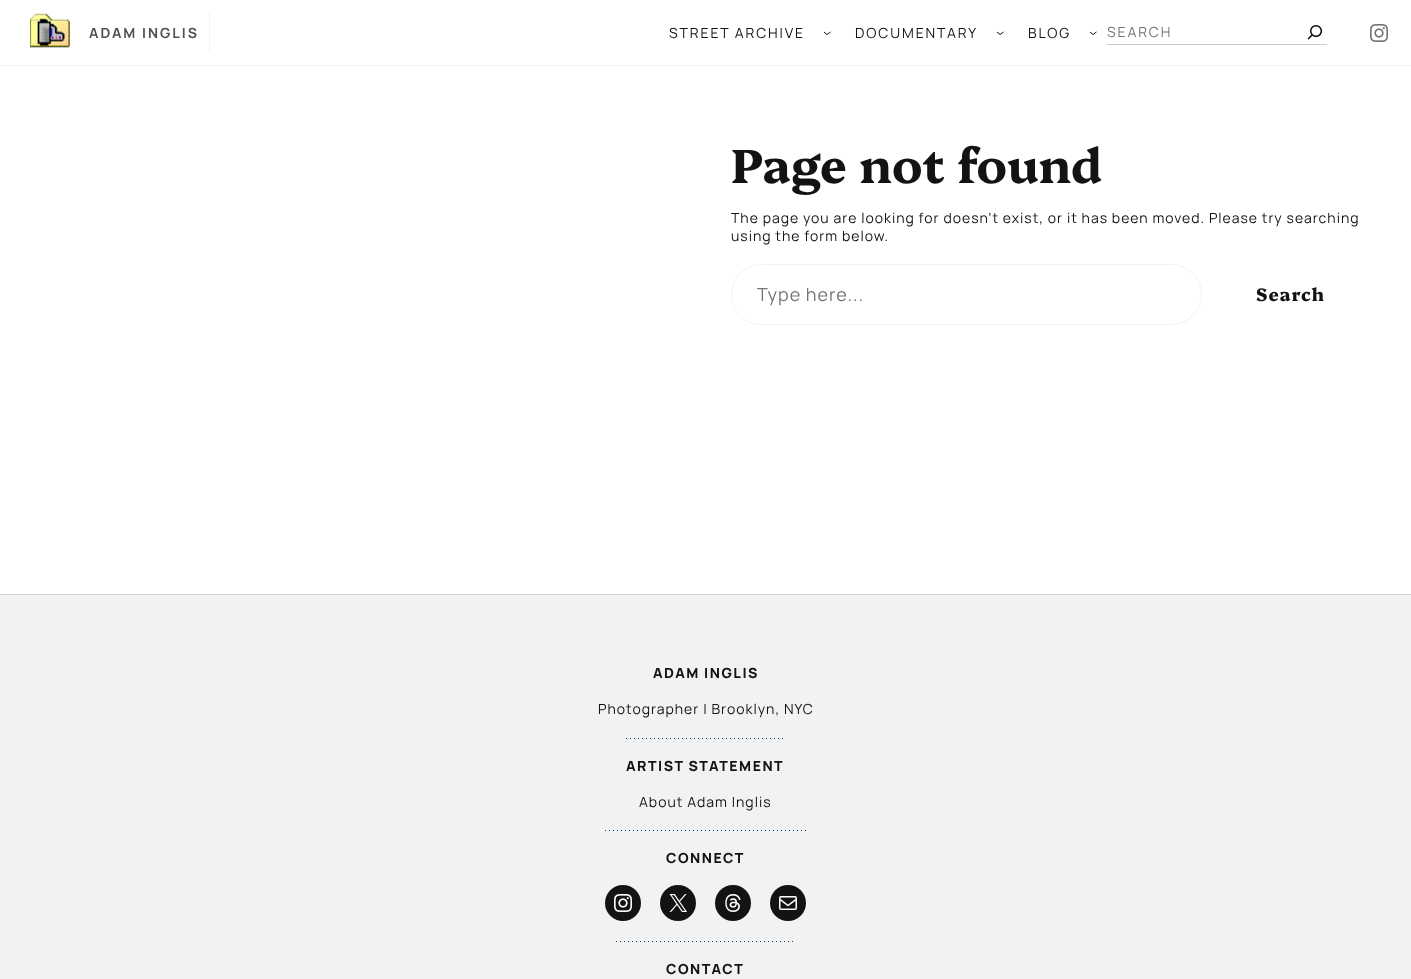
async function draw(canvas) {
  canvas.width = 1411;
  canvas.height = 979;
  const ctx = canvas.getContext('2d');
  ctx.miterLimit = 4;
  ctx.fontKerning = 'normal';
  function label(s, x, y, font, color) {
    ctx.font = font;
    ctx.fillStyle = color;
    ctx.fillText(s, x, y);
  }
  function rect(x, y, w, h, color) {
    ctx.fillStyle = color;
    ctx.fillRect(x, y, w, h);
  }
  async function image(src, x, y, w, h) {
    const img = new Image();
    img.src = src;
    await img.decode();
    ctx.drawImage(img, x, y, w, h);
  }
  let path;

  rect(0, 0, 1411, 979, '#fff');
  rect(0, 65, 1411, 1, '#f2f2f2');
  rect(209, 13, 1, 40, '#f2f2f2');
  await image('assets/img1.png', 30, 13, 40, 35);
  ctx.letterSpacing = '2px';
  label('ADAM INGLIS', 89, 38, 'bold 14px Manrope', '#505050');
  ctx.letterSpacing = '1.9px';
  label('STREET ARCHIVE', 669, 38, '14px Manrope', '#131313');
  path = new Path2D('M824 32L827 34.5L830.5 32');
  ctx.strokeStyle = '#131313';
  ctx.stroke(path);
  label('DOCUMENTARY', 855, 38, '14px Manrope', '#131313');
  path = new Path2D('M997 32L1000 34.5L1003.5 32');
  ctx.stroke(path);
  label('BLOG', 1028, 38, '14px Manrope', '#131313');
  path = new Path2D('M1090 32L1093 34.5L1096.5 32');
  ctx.stroke(path);
  rect(1107, 44, 220, 1, '#ccc');
  label('SEARCH', 1107, 37, '14px Manrope', '#757575');
  await image('assets/img2.png', 1307, 25, 16, 15);
  await image('assets/img3.png', 1370, 24, 18, 18);
  ctx.letterSpacing = '-0.1px';
  label('Page not found', 731, 183, 'bold 48px Platypi', '#131313');
  ctx.letterSpacing = '1px';
  label('The page you are looking for doesn’t exist, or it has been moved. Please try searching', 731, 223, '14px Manrope', '#131313');
  label('using the form below.', 731, 241, '14px Manrope', '#131313');
  ctx.beginPath();
  ctx.roundRect(731.5, 264.5, 470, 60, 30);
  ctx.strokeStyle = '#f2f2f2';
  ctx.stroke();
  label('Type here...', 757, 301, '18px Manrope', '#757575');
  label('Search', 1256, 301, '800 18px Platypi', '#131313');
  rect(0, 595, 1411, 384, '#f2f2f2');
  rect(0, 594, 1411, 1, '#d2d2d2');
  ctx.letterSpacing = '1.5px';
  label('ADAM INGLIS', 653, 678, '800 14px Manrope', '#131313');
  ctx.letterSpacing = '1px';
  label('Photographer | Brooklyn, NYC', 598, 714, '14px Manrope', '#131313');
  await image('assets/img4.png', 626, 738, 157, 1);
  ctx.letterSpacing = '1.5px';
  label('ARTIST STATEMENT', 626, 771, '800 14px Manrope', '#131313');
  ctx.letterSpacing = '1px';
  label('About Adam Inglis', 639, 807, '14px Manrope', '#131313');
  await image('assets/img5.png', 605, 830, 201, 1);
  ctx.letterSpacing = '1.5px';
  label('CONNECT', 666, 863, '800 14px Manrope', '#131313');
  ctx.beginPath();
  ctx.arc(623, 903, 18, 0, 2 * Math.PI);
  ctx.fill();
  await image('assets/img6.png', 614, 894, 18, 18);
  ctx.beginPath();
  ctx.arc(678, 903, 18, 0, 2 * Math.PI);
  ctx.fill();
  await image('assets/img7.png', 669, 894, 18, 18);
  ctx.beginPath();
  ctx.arc(733, 903, 18, 0, 2 * Math.PI);
  ctx.fill();
  await image('assets/img8.png', 725, 894, 16, 18);
  ctx.beginPath();
  ctx.arc(788, 903, 18, 0, 2 * Math.PI);
  ctx.fill();
  await image('assets/img9.png', 779, 896, 18, 14);
  await image('assets/img10.png', 616, 941, 177, 1);
  label('CONTACT', 666, 974, '800 14px Manrope', '#131313');
}

draw(document.querySelector('canvas'));
